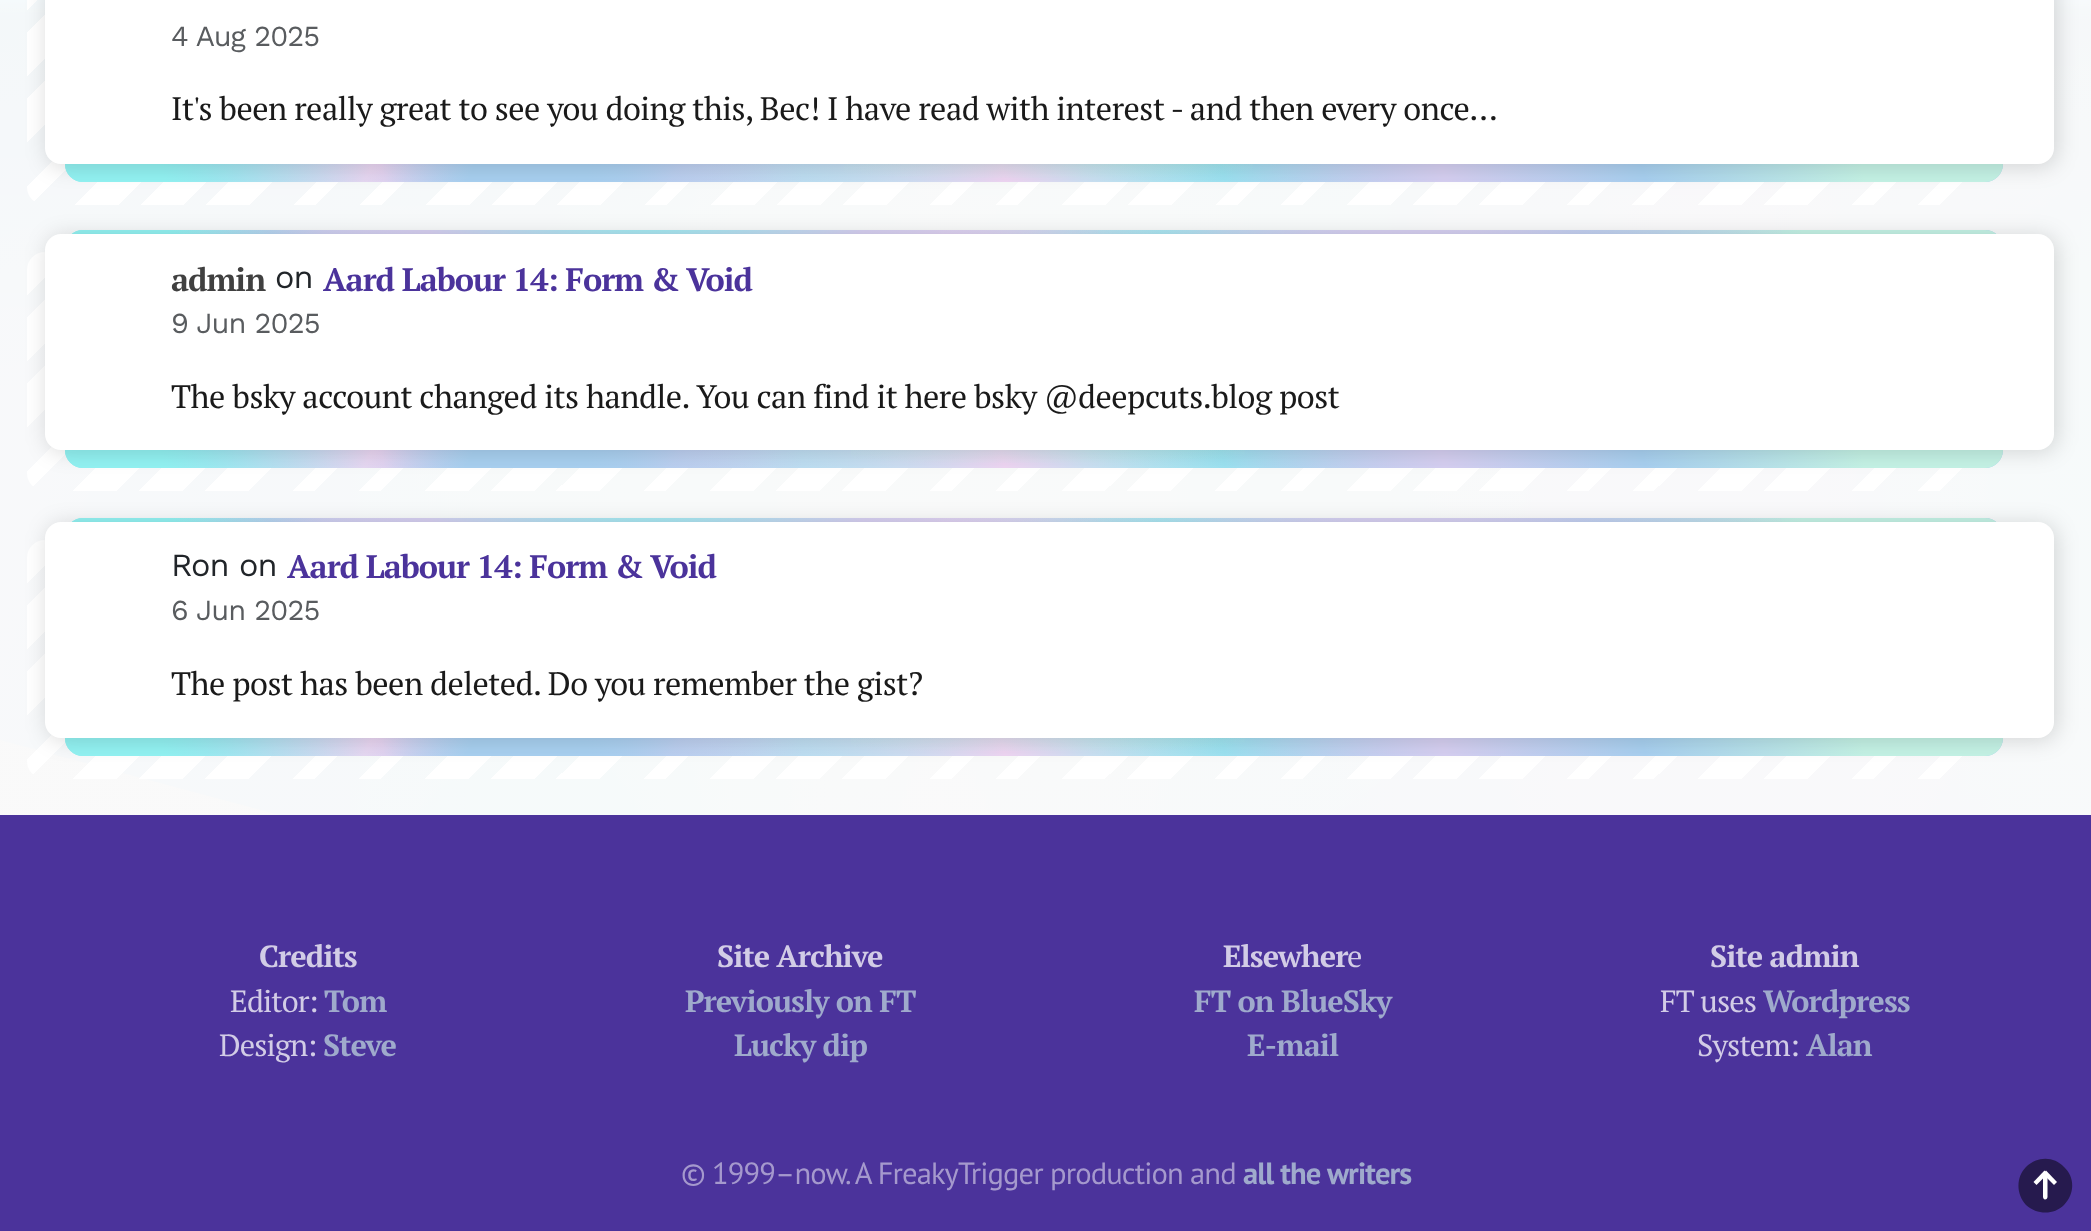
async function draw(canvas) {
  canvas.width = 2091;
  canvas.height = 1231;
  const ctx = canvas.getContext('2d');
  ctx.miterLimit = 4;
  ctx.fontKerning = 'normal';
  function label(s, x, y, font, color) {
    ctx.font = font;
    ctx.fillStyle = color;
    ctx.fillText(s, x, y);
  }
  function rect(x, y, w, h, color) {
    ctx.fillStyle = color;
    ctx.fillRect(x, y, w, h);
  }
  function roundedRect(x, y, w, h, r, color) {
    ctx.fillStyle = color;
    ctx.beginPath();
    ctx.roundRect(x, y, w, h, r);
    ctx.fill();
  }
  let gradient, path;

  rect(0, 0, 2091, 1231, '#eee');
  gradient = ctx.createLinearGradient(-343, -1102, 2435, 1228);
  gradient.addColorStop(0.05, '#a1ffff');
  gradient.addColorStop(0.1, '#b9e5ff');
  gradient.addColorStop(0.15, '#ebe4ff');
  gradient.addColorStop(0.2, '#ffeaff');
  gradient.addColorStop(0.25, '#b9e5ff');
  gradient.addColorStop(0.3, '#b9e5ff');
  gradient.addColorStop(0.35, '#ebe4ff');
  gradient.addColorStop(0.4, '#d5f2ff');
  gradient.addColorStop(0.55, '#a1ffff');
  gradient.addColorStop(0.7, '#b9e5ff');
  ctx.fillStyle = gradient;
  path = new Path2D('M-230-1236L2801-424L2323 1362L-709 550Z');
  ctx.fill(path);
  gradient = ctx.createRadialGradient(2562, 1591.66, 0, 2562, 1591.66, 4439);
  gradient.addColorStop(0, '#a1ffff');
  gradient.addColorStop(0.25, '#d5f2ff');
  gradient.addColorStop(0.5, '#d5f2ff00');
  ctx.fillStyle = gradient;
  path = new Path2D('M-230-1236L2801-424L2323 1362L-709 550Z');
  ctx.save();
  ctx.clip(path);
  ctx.scale(1, 1308 / 4439);
  ctx.fillRect(0, 0, 2091, 4178);
  ctx.restore();
  gradient = ctx.createRadialGradient(440, -235.16, 0, 440, -235.16, 3107);
  gradient.addColorStop(0, '#acccff');
  gradient.addColorStop(0.3, '#acccff00');
  ctx.fillStyle = gradient;
  path = new Path2D('M-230-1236L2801-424L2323 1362L-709 550Z');
  ctx.save();
  ctx.clip(path);
  ctx.scale(1, 1308 / 3107);
  ctx.fillRect(0, 0, 2091, 2925);
  ctx.restore();
  gradient = ctx.createRadialGradient(440, -235.16, 0, 440, -235.16, 3107);
  gradient.addColorStop(0, '#a1ffff');
  gradient.addColorStop(0.3, '#a1ffff00');
  ctx.fillStyle = gradient;
  path = new Path2D('M-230-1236L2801-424L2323 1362L-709 550Z');
  ctx.save();
  ctx.clip(path);
  ctx.scale(1, 1308 / 3107);
  ctx.fillRect(0, 0, 2091, 2925);
  ctx.restore();
  gradient = ctx.createLinearGradient(-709, 63, 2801, 63);
  gradient.addColorStop(0.05, '#a1ffff');
  gradient.addColorStop(0.16, '#a1ffff00');
  gradient.addColorStop(0.16, '#b9e5ff00');
  gradient.addColorStop(0.26, '#b9e5ff');
  gradient.addColorStop(0.37, '#b9e5ff00');
  gradient.addColorStop(0.37, '#ffeaff00');
  gradient.addColorStop(0.47, '#ffeaff');
  gradient.addColorStop(0.58, '#ffeaff00');
  gradient.addColorStop(0.58, '#ebe4ff00');
  gradient.addColorStop(0.69, '#ebe4ff');
  gradient.addColorStop(0.79, '#ebe4ff00');
  gradient.addColorStop(0.79, '#d8fffc00');
  gradient.addColorStop(0.9, '#d8fffc');
  ctx.fillStyle = gradient;
  path = new Path2D('M-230-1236L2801-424L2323 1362L-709 550Z');
  ctx.fill(path);
  gradient = ctx.createRadialGradient(951, 509, 0, 951, 509, 2219);
  gradient.addColorStop(0, '#d8fffc');
  gradient.addColorStop(0.3, '#d8fffc00');
  ctx.fillStyle = gradient;
  path = new Path2D('M-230-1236L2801-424L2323 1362L-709 550Z');
  ctx.save();
  ctx.clip(path);
  ctx.scale(1, 1831 / 2219);
  ctx.fillRect(0, 0, 2091, 1492);
  ctx.restore();
  ctx.fillStyle = '#f0f0f04d';
  ctx.filter = 'blur(11px)';
  ctx.beginPath();
  ctx.rect(-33, 0, 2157, 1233);
  ctx.fill();
  ctx.filter = 'none';
  ctx.fillStyle = '#0000002e';
  ctx.filter = 'blur(11px)';
  ctx.beginPath();
  ctx.rect(-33, 0, 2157, 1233);
  ctx.fill();
  ctx.filter = 'none';
  gradient = ctx.createLinearGradient(1046, -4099, 1046, 815);
  gradient.addColorStop(0.1, '#ffffff80');
  gradient.addColorStop(0.4, '#ffffff40');
  ctx.fillStyle = gradient;
  ctx.fillRect(0, 0, 2091, 815);
  gradient = ctx.createLinearGradient(1046, 815, 1046, -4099);
  gradient.addColorStop(0.1, '#ffffffbf');
  gradient.addColorStop(0.9, '#ffffff00');
  ctx.fillStyle = gradient;
  ctx.fillRect(0, 0, 2091, 815);
  rect(0, 0, 2091, 815, '#ffffff80');
  gradient = ctx.createLinearGradient(452, -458, 1549, 639);
  gradient.addColorStop(0, '#fff');
  gradient.addColorStop(0.01, '#fff');
  gradient.addColorStop(0.01, '#ffffff00');
  gradient.addColorStop(0.01, '#ffffff00');
  gradient.addColorStop(0.01, '#fff');
  gradient.addColorStop(0.02, '#fff');
  gradient.addColorStop(0.02, '#ffffff00');
  gradient.addColorStop(0.03, '#ffffff00');
  gradient.addColorStop(0.03, '#fff');
  gradient.addColorStop(0.04, '#fff');
  gradient.addColorStop(0.04, '#ffffff00');
  gradient.addColorStop(0.04, '#ffffff00');
  gradient.addColorStop(0.04, '#fff');
  gradient.addColorStop(0.05, '#fff');
  gradient.addColorStop(0.05, '#ffffff00');
  gradient.addColorStop(0.06, '#ffffff00');
  gradient.addColorStop(0.06, '#fff');
  gradient.addColorStop(0.07, '#fff');
  gradient.addColorStop(0.07, '#ffffff00');
  gradient.addColorStop(0.07, '#ffffff00');
  gradient.addColorStop(0.07, '#fff');
  gradient.addColorStop(0.08, '#fff');
  gradient.addColorStop(0.08, '#ffffff00');
  gradient.addColorStop(0.09, '#ffffff00');
  gradient.addColorStop(0.09, '#fff');
  gradient.addColorStop(0.09, '#fff');
  gradient.addColorStop(0.09, '#ffffff00');
  gradient.addColorStop(0.1, '#ffffff00');
  gradient.addColorStop(0.1, '#fff');
  gradient.addColorStop(0.11, '#fff');
  gradient.addColorStop(0.11, '#ffffff00');
  gradient.addColorStop(0.12, '#ffffff00');
  gradient.addColorStop(0.12, '#fff');
  gradient.addColorStop(0.12, '#fff');
  gradient.addColorStop(0.12, '#ffffff00');
  gradient.addColorStop(0.13, '#ffffff00');
  gradient.addColorStop(0.13, '#fff');
  gradient.addColorStop(0.14, '#fff');
  gradient.addColorStop(0.14, '#ffffff00');
  gradient.addColorStop(0.14, '#ffffff00');
  gradient.addColorStop(0.14, '#fff');
  gradient.addColorStop(0.15, '#fff');
  gradient.addColorStop(0.15, '#ffffff00');
  gradient.addColorStop(0.16, '#ffffff00');
  gradient.addColorStop(0.16, '#fff');
  gradient.addColorStop(0.17, '#fff');
  gradient.addColorStop(0.17, '#ffffff00');
  gradient.addColorStop(0.17, '#ffffff00');
  gradient.addColorStop(0.17, '#fff');
  gradient.addColorStop(0.18, '#fff');
  gradient.addColorStop(0.18, '#ffffff00');
  gradient.addColorStop(0.19, '#ffffff00');
  gradient.addColorStop(0.19, '#fff');
  gradient.addColorStop(0.2, '#fff');
  gradient.addColorStop(0.2, '#ffffff00');
  gradient.addColorStop(0.2, '#ffffff00');
  gradient.addColorStop(0.2, '#fff');
  gradient.addColorStop(0.21, '#fff');
  gradient.addColorStop(0.21, '#ffffff00');
  gradient.addColorStop(0.22, '#ffffff00');
  gradient.addColorStop(0.22, '#fff');
  gradient.addColorStop(0.22, '#fff');
  gradient.addColorStop(0.22, '#ffffff00');
  gradient.addColorStop(0.23, '#ffffff00');
  gradient.addColorStop(0.23, '#fff');
  gradient.addColorStop(0.24, '#fff');
  gradient.addColorStop(0.24, '#ffffff00');
  gradient.addColorStop(0.25, '#ffffff00');
  gradient.addColorStop(0.25, '#fff');
  gradient.addColorStop(0.25, '#fff');
  gradient.addColorStop(0.25, '#ffffff00');
  gradient.addColorStop(0.26, '#ffffff00');
  gradient.addColorStop(0.26, '#fff');
  gradient.addColorStop(0.27, '#fff');
  gradient.addColorStop(0.27, '#ffffff00');
  gradient.addColorStop(0.28, '#ffffff00');
  gradient.addColorStop(0.28, '#fff');
  gradient.addColorStop(0.28, '#fff');
  gradient.addColorStop(0.28, '#ffffff00');
  gradient.addColorStop(0.29, '#ffffff00');
  gradient.addColorStop(0.29, '#fff');
  gradient.addColorStop(0.3, '#fff');
  gradient.addColorStop(0.3, '#ffffff00');
  gradient.addColorStop(0.3, '#ffffff00');
  gradient.addColorStop(0.3, '#fff');
  gradient.addColorStop(0.31, '#fff');
  gradient.addColorStop(0.31, '#ffffff00');
  gradient.addColorStop(0.32, '#ffffff00');
  gradient.addColorStop(0.32, '#fff');
  gradient.addColorStop(0.33, '#fff');
  gradient.addColorStop(0.33, '#ffffff00');
  gradient.addColorStop(0.33, '#ffffff00');
  gradient.addColorStop(0.33, '#fff');
  gradient.addColorStop(0.34, '#fff');
  gradient.addColorStop(0.34, '#ffffff00');
  gradient.addColorStop(0.35, '#ffffff00');
  gradient.addColorStop(0.35, '#fff');
  gradient.addColorStop(0.36, '#fff');
  gradient.addColorStop(0.36, '#ffffff00');
  gradient.addColorStop(0.36, '#ffffff00');
  gradient.addColorStop(0.36, '#fff');
  gradient.addColorStop(0.37, '#fff');
  gradient.addColorStop(0.37, '#ffffff00');
  gradient.addColorStop(0.38, '#ffffff00');
  gradient.addColorStop(0.38, '#fff');
  gradient.addColorStop(0.38, '#fff');
  gradient.addColorStop(0.38, '#ffffff00');
  gradient.addColorStop(0.39, '#ffffff00');
  gradient.addColorStop(0.39, '#fff');
  gradient.addColorStop(0.4, '#fff');
  gradient.addColorStop(0.4, '#ffffff00');
  gradient.addColorStop(0.41, '#ffffff00');
  gradient.addColorStop(0.41, '#fff');
  gradient.addColorStop(0.41, '#fff');
  gradient.addColorStop(0.41, '#ffffff00');
  gradient.addColorStop(0.42, '#ffffff00');
  gradient.addColorStop(0.42, '#fff');
  gradient.addColorStop(0.43, '#fff');
  gradient.addColorStop(0.43, '#ffffff00');
  gradient.addColorStop(0.43, '#ffffff00');
  gradient.addColorStop(0.43, '#fff');
  gradient.addColorStop(0.44, '#fff');
  gradient.addColorStop(0.44, '#ffffff00');
  gradient.addColorStop(0.45, '#ffffff00');
  gradient.addColorStop(0.45, '#fff');
  gradient.addColorStop(0.46, '#fff');
  gradient.addColorStop(0.46, '#ffffff00');
  gradient.addColorStop(0.46, '#ffffff00');
  gradient.addColorStop(0.46, '#fff');
  gradient.addColorStop(0.47, '#fff');
  gradient.addColorStop(0.47, '#ffffff00');
  gradient.addColorStop(0.48, '#ffffff00');
  gradient.addColorStop(0.48, '#fff');
  gradient.addColorStop(0.49, '#fff');
  gradient.addColorStop(0.49, '#ffffff00');
  gradient.addColorStop(0.49, '#ffffff00');
  gradient.addColorStop(0.49, '#fff');
  gradient.addColorStop(0.5, '#fff');
  gradient.addColorStop(0.5, '#ffffff00');
  gradient.addColorStop(0.51, '#ffffff00');
  gradient.addColorStop(0.51, '#fff');
  gradient.addColorStop(0.51, '#fff');
  gradient.addColorStop(0.51, '#ffffff00');
  gradient.addColorStop(0.52, '#ffffff00');
  gradient.addColorStop(0.52, '#fff');
  gradient.addColorStop(0.53, '#fff');
  gradient.addColorStop(0.53, '#ffffff00');
  gradient.addColorStop(0.54, '#ffffff00');
  gradient.addColorStop(0.54, '#fff');
  gradient.addColorStop(0.54, '#fff');
  gradient.addColorStop(0.54, '#ffffff00');
  gradient.addColorStop(0.55, '#ffffff00');
  gradient.addColorStop(0.55, '#fff');
  gradient.addColorStop(0.56, '#fff');
  gradient.addColorStop(0.56, '#ffffff00');
  gradient.addColorStop(0.57, '#ffffff00');
  gradient.addColorStop(0.57, '#fff');
  gradient.addColorStop(0.57, '#fff');
  gradient.addColorStop(0.57, '#ffffff00');
  gradient.addColorStop(0.58, '#ffffff00');
  gradient.addColorStop(0.58, '#fff');
  gradient.addColorStop(0.59, '#fff');
  gradient.addColorStop(0.59, '#ffffff00');
  gradient.addColorStop(0.59, '#ffffff00');
  gradient.addColorStop(0.59, '#fff');
  gradient.addColorStop(0.6, '#fff');
  gradient.addColorStop(0.6, '#ffffff00');
  gradient.addColorStop(0.61, '#ffffff00');
  gradient.addColorStop(0.61, '#fff');
  gradient.addColorStop(0.62, '#fff');
  gradient.addColorStop(0.62, '#ffffff00');
  gradient.addColorStop(0.62, '#ffffff00');
  gradient.addColorStop(0.62, '#fff');
  gradient.addColorStop(0.63, '#fff');
  gradient.addColorStop(0.63, '#ffffff00');
  gradient.addColorStop(0.64, '#ffffff00');
  gradient.addColorStop(0.64, '#fff');
  gradient.addColorStop(0.64, '#fff');
  gradient.addColorStop(0.64, '#ffffff00');
  gradient.addColorStop(0.65, '#ffffff00');
  gradient.addColorStop(0.65, '#fff');
  gradient.addColorStop(0.66, '#fff');
  gradient.addColorStop(0.66, '#ffffff00');
  gradient.addColorStop(0.67, '#ffffff00');
  gradient.addColorStop(0.67, '#fff');
  gradient.addColorStop(0.67, '#fff');
  gradient.addColorStop(0.67, '#ffffff00');
  gradient.addColorStop(0.68, '#ffffff00');
  gradient.addColorStop(0.68, '#fff');
  gradient.addColorStop(0.69, '#fff');
  gradient.addColorStop(0.69, '#ffffff00');
  gradient.addColorStop(0.7, '#ffffff00');
  gradient.addColorStop(0.7, '#fff');
  gradient.addColorStop(0.7, '#fff');
  gradient.addColorStop(0.7, '#ffffff00');
  gradient.addColorStop(0.71, '#ffffff00');
  gradient.addColorStop(0.71, '#fff');
  gradient.addColorStop(0.72, '#fff');
  gradient.addColorStop(0.72, '#ffffff00');
  gradient.addColorStop(0.72, '#ffffff00');
  gradient.addColorStop(0.72, '#fff');
  gradient.addColorStop(0.73, '#fff');
  gradient.addColorStop(0.73, '#ffffff00');
  gradient.addColorStop(0.74, '#ffffff00');
  gradient.addColorStop(0.74, '#fff');
  gradient.addColorStop(0.75, '#fff');
  gradient.addColorStop(0.75, '#ffffff00');
  gradient.addColorStop(0.75, '#ffffff00');
  gradient.addColorStop(0.75, '#fff');
  gradient.addColorStop(0.76, '#fff');
  gradient.addColorStop(0.76, '#ffffff00');
  gradient.addColorStop(0.77, '#ffffff00');
  gradient.addColorStop(0.77, '#fff');
  gradient.addColorStop(0.78, '#fff');
  gradient.addColorStop(0.78, '#ffffff00');
  gradient.addColorStop(0.78, '#ffffff00');
  gradient.addColorStop(0.78, '#fff');
  gradient.addColorStop(0.79, '#fff');
  gradient.addColorStop(0.79, '#ffffff00');
  gradient.addColorStop(0.8, '#ffffff00');
  gradient.addColorStop(0.8, '#fff');
  gradient.addColorStop(0.8, '#fff');
  gradient.addColorStop(0.8, '#ffffff00');
  gradient.addColorStop(0.81, '#ffffff00');
  gradient.addColorStop(0.81, '#fff');
  gradient.addColorStop(0.82, '#fff');
  gradient.addColorStop(0.82, '#ffffff00');
  gradient.addColorStop(0.83, '#ffffff00');
  gradient.addColorStop(0.83, '#fff');
  gradient.addColorStop(0.83, '#fff');
  gradient.addColorStop(0.83, '#ffffff00');
  gradient.addColorStop(0.84, '#ffffff00');
  gradient.addColorStop(0.84, '#fff');
  gradient.addColorStop(0.85, '#fff');
  gradient.addColorStop(0.85, '#ffffff00');
  gradient.addColorStop(0.86, '#ffffff00');
  gradient.addColorStop(0.86, '#fff');
  gradient.addColorStop(0.86, '#fff');
  gradient.addColorStop(0.86, '#ffffff00');
  gradient.addColorStop(0.87, '#ffffff00');
  gradient.addColorStop(0.87, '#fff');
  gradient.addColorStop(0.88, '#fff');
  gradient.addColorStop(0.88, '#ffffff00');
  gradient.addColorStop(0.88, '#ffffff00');
  gradient.addColorStop(0.88, '#fff');
  gradient.addColorStop(0.89, '#fff');
  gradient.addColorStop(0.89, '#ffffff00');
  gradient.addColorStop(0.9, '#ffffff00');
  gradient.addColorStop(0.9, '#fff');
  gradient.addColorStop(0.91, '#fff');
  gradient.addColorStop(0.91, '#ffffff00');
  gradient.addColorStop(0.91, '#ffffff00');
  gradient.addColorStop(0.91, '#fff');
  gradient.addColorStop(0.92, '#fff');
  gradient.addColorStop(0.92, '#ffffff00');
  gradient.addColorStop(0.93, '#ffffff00');
  gradient.addColorStop(0.93, '#fff');
  gradient.addColorStop(0.93, '#fff');
  gradient.addColorStop(0.93, '#ffffff00');
  gradient.addColorStop(0.94, '#ffffff00');
  gradient.addColorStop(0.94, '#fff');
  gradient.addColorStop(0.95, '#fff');
  gradient.addColorStop(0.95, '#ffffff00');
  gradient.addColorStop(0.96, '#ffffff00');
  gradient.addColorStop(0.96, '#fff');
  gradient.addColorStop(0.96, '#fff');
  gradient.addColorStop(0.96, '#ffffff00');
  gradient.addColorStop(0.97, '#ffffff00');
  gradient.addColorStop(0.97, '#fff');
  gradient.addColorStop(0.98, '#fff');
  gradient.addColorStop(0.98, '#ffffff00');
  gradient.addColorStop(0.99, '#ffffff00');
  gradient.addColorStop(0.99, '#fff');
  gradient.addColorStop(0.99, '#fff');
  gradient.addColorStop(0.99, '#ffffff00');
  gradient.addColorStop(1, '#00000000');
  ctx.fillStyle = gradient;
  ctx.beginPath();
  ctx.roundRect(27, -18, 1937, 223, 18);
  ctx.fill();
  gradient = ctx.createLinearGradient(193, -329, 1875, 455);
  gradient.addColorStop(0.05, '#92f2f2');
  gradient.addColorStop(0.1, '#a8d0f0');
  gradient.addColorStop(0.15, '#d6cff1');
  gradient.addColorStop(0.2, '#eed5f2');
  gradient.addColorStop(0.25, '#a8d0f0');
  gradient.addColorStop(0.3, '#a8d0f0');
  gradient.addColorStop(0.35, '#d6cff1');
  gradient.addColorStop(0.4, '#c2dcf2');
  gradient.addColorStop(0.55, '#92f2f2');
  gradient.addColorStop(0.7, '#a8d0f0');
  ctx.fillStyle = gradient;
  ctx.beginPath();
  ctx.roundRect(65, -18, 1938, 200, 18);
  ctx.fill();
  gradient = ctx.createLinearGradient(100, 313, 1967, -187);
  gradient.addColorStop(0.05, '#92f2f2');
  gradient.addColorStop(0.16, '#92f2f200');
  gradient.addColorStop(0.16, '#a8d0f000');
  gradient.addColorStop(0.26, '#a8d0f0');
  gradient.addColorStop(0.37, '#a8d0f000');
  gradient.addColorStop(0.37, '#eed5f200');
  gradient.addColorStop(0.47, '#eed5f2');
  gradient.addColorStop(0.58, '#eed5f200');
  gradient.addColorStop(0.58, '#d6cff100');
  gradient.addColorStop(0.69, '#d6cff1');
  gradient.addColorStop(0.79, '#d6cff100');
  gradient.addColorStop(0.79, '#c4f2e500');
  gradient.addColorStop(0.9, '#c4f2e5');
  ctx.fillStyle = gradient;
  ctx.beginPath();
  ctx.roundRect(65, -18, 1938, 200, 18);
  ctx.fill();
  gradient = ctx.createRadialGradient(1034, 644.36, 0, 1034, 644.36, 1370);
  gradient.addColorStop(0, '#c4f2e5');
  gradient.addColorStop(0.3, '#c4f2e500');
  ctx.fillStyle = gradient;
  ctx.beginPath();
  ctx.rect(844, 164, 409, 14);
  ctx.save();
  ctx.clip();
  ctx.scale(1, 236 / 1370);
  ctx.fillRect(0, 0, 2091, 7147);
  ctx.restore();
  ctx.fillStyle = '#00000026';
  ctx.filter = 'blur(11px)';
  ctx.beginPath();
  ctx.roundRect(47, -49, 2010, 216, 16);
  ctx.fill();
  ctx.filter = 'none';
  roundedRect(45, -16, 2009, 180, 16, '#fff');
  ctx.letterSpacing = '-0.9px';
  label('4 Aug 2025', 171, 46, '29px Work Sans', '#595c5f');
  ctx.letterSpacing = '-0.5px';
  label('It\'s been really great to see you doing this, Bec! I have read with interest - and then every once…', 171, 120, '32.4px PT Serif', '#1a1a1a');
  gradient = ctx.createLinearGradient(452, -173, 1549, 925);
  gradient.addColorStop(0, '#fff');
  gradient.addColorStop(0.01, '#fff');
  gradient.addColorStop(0.01, '#ffffff00');
  gradient.addColorStop(0.01, '#ffffff00');
  gradient.addColorStop(0.01, '#fff');
  gradient.addColorStop(0.02, '#fff');
  gradient.addColorStop(0.02, '#ffffff00');
  gradient.addColorStop(0.03, '#ffffff00');
  gradient.addColorStop(0.03, '#fff');
  gradient.addColorStop(0.04, '#fff');
  gradient.addColorStop(0.04, '#ffffff00');
  gradient.addColorStop(0.04, '#ffffff00');
  gradient.addColorStop(0.04, '#fff');
  gradient.addColorStop(0.05, '#fff');
  gradient.addColorStop(0.05, '#ffffff00');
  gradient.addColorStop(0.06, '#ffffff00');
  gradient.addColorStop(0.06, '#fff');
  gradient.addColorStop(0.07, '#fff');
  gradient.addColorStop(0.07, '#ffffff00');
  gradient.addColorStop(0.07, '#ffffff00');
  gradient.addColorStop(0.07, '#fff');
  gradient.addColorStop(0.08, '#fff');
  gradient.addColorStop(0.08, '#ffffff00');
  gradient.addColorStop(0.09, '#ffffff00');
  gradient.addColorStop(0.09, '#fff');
  gradient.addColorStop(0.09, '#fff');
  gradient.addColorStop(0.09, '#ffffff00');
  gradient.addColorStop(0.1, '#ffffff00');
  gradient.addColorStop(0.1, '#fff');
  gradient.addColorStop(0.11, '#fff');
  gradient.addColorStop(0.11, '#ffffff00');
  gradient.addColorStop(0.12, '#ffffff00');
  gradient.addColorStop(0.12, '#fff');
  gradient.addColorStop(0.12, '#fff');
  gradient.addColorStop(0.12, '#ffffff00');
  gradient.addColorStop(0.13, '#ffffff00');
  gradient.addColorStop(0.13, '#fff');
  gradient.addColorStop(0.14, '#fff');
  gradient.addColorStop(0.14, '#ffffff00');
  gradient.addColorStop(0.14, '#ffffff00');
  gradient.addColorStop(0.14, '#fff');
  gradient.addColorStop(0.15, '#fff');
  gradient.addColorStop(0.15, '#ffffff00');
  gradient.addColorStop(0.16, '#ffffff00');
  gradient.addColorStop(0.16, '#fff');
  gradient.addColorStop(0.17, '#fff');
  gradient.addColorStop(0.17, '#ffffff00');
  gradient.addColorStop(0.17, '#ffffff00');
  gradient.addColorStop(0.17, '#fff');
  gradient.addColorStop(0.18, '#fff');
  gradient.addColorStop(0.18, '#ffffff00');
  gradient.addColorStop(0.19, '#ffffff00');
  gradient.addColorStop(0.19, '#fff');
  gradient.addColorStop(0.2, '#fff');
  gradient.addColorStop(0.2, '#ffffff00');
  gradient.addColorStop(0.2, '#ffffff00');
  gradient.addColorStop(0.2, '#fff');
  gradient.addColorStop(0.21, '#fff');
  gradient.addColorStop(0.21, '#ffffff00');
  gradient.addColorStop(0.22, '#ffffff00');
  gradient.addColorStop(0.22, '#fff');
  gradient.addColorStop(0.22, '#fff');
  gradient.addColorStop(0.22, '#ffffff00');
  gradient.addColorStop(0.23, '#ffffff00');
  gradient.addColorStop(0.23, '#fff');
  gradient.addColorStop(0.24, '#fff');
  gradient.addColorStop(0.24, '#ffffff00');
  gradient.addColorStop(0.25, '#ffffff00');
  gradient.addColorStop(0.25, '#fff');
  gradient.addColorStop(0.25, '#fff');
  gradient.addColorStop(0.25, '#ffffff00');
  gradient.addColorStop(0.26, '#ffffff00');
  gradient.addColorStop(0.26, '#fff');
  gradient.addColorStop(0.27, '#fff');
  gradient.addColorStop(0.27, '#ffffff00');
  gradient.addColorStop(0.28, '#ffffff00');
  gradient.addColorStop(0.28, '#fff');
  gradient.addColorStop(0.28, '#fff');
  gradient.addColorStop(0.28, '#ffffff00');
  gradient.addColorStop(0.29, '#ffffff00');
  gradient.addColorStop(0.29, '#fff');
  gradient.addColorStop(0.3, '#fff');
  gradient.addColorStop(0.3, '#ffffff00');
  gradient.addColorStop(0.3, '#ffffff00');
  gradient.addColorStop(0.3, '#fff');
  gradient.addColorStop(0.31, '#fff');
  gradient.addColorStop(0.31, '#ffffff00');
  gradient.addColorStop(0.32, '#ffffff00');
  gradient.addColorStop(0.32, '#fff');
  gradient.addColorStop(0.33, '#fff');
  gradient.addColorStop(0.33, '#ffffff00');
  gradient.addColorStop(0.33, '#ffffff00');
  gradient.addColorStop(0.33, '#fff');
  gradient.addColorStop(0.34, '#fff');
  gradient.addColorStop(0.34, '#ffffff00');
  gradient.addColorStop(0.35, '#ffffff00');
  gradient.addColorStop(0.35, '#fff');
  gradient.addColorStop(0.36, '#fff');
  gradient.addColorStop(0.36, '#ffffff00');
  gradient.addColorStop(0.36, '#ffffff00');
  gradient.addColorStop(0.36, '#fff');
  gradient.addColorStop(0.37, '#fff');
  gradient.addColorStop(0.37, '#ffffff00');
  gradient.addColorStop(0.38, '#ffffff00');
  gradient.addColorStop(0.38, '#fff');
  gradient.addColorStop(0.38, '#fff');
  gradient.addColorStop(0.38, '#ffffff00');
  gradient.addColorStop(0.39, '#ffffff00');
  gradient.addColorStop(0.39, '#fff');
  gradient.addColorStop(0.4, '#fff');
  gradient.addColorStop(0.4, '#ffffff00');
  gradient.addColorStop(0.41, '#ffffff00');
  gradient.addColorStop(0.41, '#fff');
  gradient.addColorStop(0.41, '#fff');
  gradient.addColorStop(0.41, '#ffffff00');
  gradient.addColorStop(0.42, '#ffffff00');
  gradient.addColorStop(0.42, '#fff');
  gradient.addColorStop(0.43, '#fff');
  gradient.addColorStop(0.43, '#ffffff00');
  gradient.addColorStop(0.43, '#ffffff00');
  gradient.addColorStop(0.43, '#fff');
  gradient.addColorStop(0.44, '#fff');
  gradient.addColorStop(0.44, '#ffffff00');
  gradient.addColorStop(0.45, '#ffffff00');
  gradient.addColorStop(0.45, '#fff');
  gradient.addColorStop(0.46, '#fff');
  gradient.addColorStop(0.46, '#ffffff00');
  gradient.addColorStop(0.46, '#ffffff00');
  gradient.addColorStop(0.46, '#fff');
  gradient.addColorStop(0.47, '#fff');
  gradient.addColorStop(0.47, '#ffffff00');
  gradient.addColorStop(0.48, '#ffffff00');
  gradient.addColorStop(0.48, '#fff');
  gradient.addColorStop(0.49, '#fff');
  gradient.addColorStop(0.49, '#ffffff00');
  gradient.addColorStop(0.49, '#ffffff00');
  gradient.addColorStop(0.49, '#fff');
  gradient.addColorStop(0.5, '#fff');
  gradient.addColorStop(0.5, '#ffffff00');
  gradient.addColorStop(0.51, '#ffffff00');
  gradient.addColorStop(0.51, '#fff');
  gradient.addColorStop(0.51, '#fff');
  gradient.addColorStop(0.51, '#ffffff00');
  gradient.addColorStop(0.52, '#ffffff00');
  gradient.addColorStop(0.52, '#fff');
  gradient.addColorStop(0.53, '#fff');
  gradient.addColorStop(0.53, '#ffffff00');
  gradient.addColorStop(0.54, '#ffffff00');
  gradient.addColorStop(0.54, '#fff');
  gradient.addColorStop(0.54, '#fff');
  gradient.addColorStop(0.54, '#ffffff00');
  gradient.addColorStop(0.55, '#ffffff00');
  gradient.addColorStop(0.55, '#fff');
  gradient.addColorStop(0.56, '#fff');
  gradient.addColorStop(0.56, '#ffffff00');
  gradient.addColorStop(0.57, '#ffffff00');
  gradient.addColorStop(0.57, '#fff');
  gradient.addColorStop(0.57, '#fff');
  gradient.addColorStop(0.57, '#ffffff00');
  gradient.addColorStop(0.58, '#ffffff00');
  gradient.addColorStop(0.58, '#fff');
  gradient.addColorStop(0.59, '#fff');
  gradient.addColorStop(0.59, '#ffffff00');
  gradient.addColorStop(0.59, '#ffffff00');
  gradient.addColorStop(0.59, '#fff');
  gradient.addColorStop(0.6, '#fff');
  gradient.addColorStop(0.6, '#ffffff00');
  gradient.addColorStop(0.61, '#ffffff00');
  gradient.addColorStop(0.61, '#fff');
  gradient.addColorStop(0.62, '#fff');
  gradient.addColorStop(0.62, '#ffffff00');
  gradient.addColorStop(0.62, '#ffffff00');
  gradient.addColorStop(0.62, '#fff');
  gradient.addColorStop(0.63, '#fff');
  gradient.addColorStop(0.63, '#ffffff00');
  gradient.addColorStop(0.64, '#ffffff00');
  gradient.addColorStop(0.64, '#fff');
  gradient.addColorStop(0.64, '#fff');
  gradient.addColorStop(0.64, '#ffffff00');
  gradient.addColorStop(0.65, '#ffffff00');
  gradient.addColorStop(0.65, '#fff');
  gradient.addColorStop(0.66, '#fff');
  gradient.addColorStop(0.66, '#ffffff00');
  gradient.addColorStop(0.67, '#ffffff00');
  gradient.addColorStop(0.67, '#fff');
  gradient.addColorStop(0.67, '#fff');
  gradient.addColorStop(0.67, '#ffffff00');
  gradient.addColorStop(0.68, '#ffffff00');
  gradient.addColorStop(0.68, '#fff');
  gradient.addColorStop(0.69, '#fff');
  gradient.addColorStop(0.69, '#ffffff00');
  gradient.addColorStop(0.7, '#ffffff00');
  gradient.addColorStop(0.7, '#fff');
  gradient.addColorStop(0.7, '#fff');
  gradient.addColorStop(0.7, '#ffffff00');
  gradient.addColorStop(0.71, '#ffffff00');
  gradient.addColorStop(0.71, '#fff');
  gradient.addColorStop(0.72, '#fff');
  gradient.addColorStop(0.72, '#ffffff00');
  gradient.addColorStop(0.72, '#ffffff00');
  gradient.addColorStop(0.72, '#fff');
  gradient.addColorStop(0.73, '#fff');
  gradient.addColorStop(0.73, '#ffffff00');
  gradient.addColorStop(0.74, '#ffffff00');
  gradient.addColorStop(0.74, '#fff');
  gradient.addColorStop(0.75, '#fff');
  gradient.addColorStop(0.75, '#ffffff00');
  gradient.addColorStop(0.75, '#ffffff00');
  gradient.addColorStop(0.75, '#fff');
  gradient.addColorStop(0.76, '#fff');
  gradient.addColorStop(0.76, '#ffffff00');
  gradient.addColorStop(0.77, '#ffffff00');
  gradient.addColorStop(0.77, '#fff');
  gradient.addColorStop(0.78, '#fff');
  gradient.addColorStop(0.78, '#ffffff00');
  gradient.addColorStop(0.78, '#ffffff00');
  gradient.addColorStop(0.78, '#fff');
  gradient.addColorStop(0.79, '#fff');
  gradient.addColorStop(0.79, '#ffffff00');
  gradient.addColorStop(0.8, '#ffffff00');
  gradient.addColorStop(0.8, '#fff');
  gradient.addColorStop(0.8, '#fff');
  gradient.addColorStop(0.8, '#ffffff00');
  gradient.addColorStop(0.81, '#ffffff00');
  gradient.addColorStop(0.81, '#fff');
  gradient.addColorStop(0.82, '#fff');
  gradient.addColorStop(0.82, '#ffffff00');
  gradient.addColorStop(0.83, '#ffffff00');
  gradient.addColorStop(0.83, '#fff');
  gradient.addColorStop(0.83, '#fff');
  gradient.addColorStop(0.83, '#ffffff00');
  gradient.addColorStop(0.84, '#ffffff00');
  gradient.addColorStop(0.84, '#fff');
  gradient.addColorStop(0.85, '#fff');
  gradient.addColorStop(0.85, '#ffffff00');
  gradient.addColorStop(0.86, '#ffffff00');
  gradient.addColorStop(0.86, '#fff');
  gradient.addColorStop(0.86, '#fff');
  gradient.addColorStop(0.86, '#ffffff00');
  gradient.addColorStop(0.87, '#ffffff00');
  gradient.addColorStop(0.87, '#fff');
  gradient.addColorStop(0.88, '#fff');
  gradient.addColorStop(0.88, '#ffffff00');
  gradient.addColorStop(0.88, '#ffffff00');
  gradient.addColorStop(0.88, '#fff');
  gradient.addColorStop(0.89, '#fff');
  gradient.addColorStop(0.89, '#ffffff00');
  gradient.addColorStop(0.9, '#ffffff00');
  gradient.addColorStop(0.9, '#fff');
  gradient.addColorStop(0.91, '#fff');
  gradient.addColorStop(0.91, '#ffffff00');
  gradient.addColorStop(0.91, '#ffffff00');
  gradient.addColorStop(0.91, '#fff');
  gradient.addColorStop(0.92, '#fff');
  gradient.addColorStop(0.92, '#ffffff00');
  gradient.addColorStop(0.93, '#ffffff00');
  gradient.addColorStop(0.93, '#fff');
  gradient.addColorStop(0.93, '#fff');
  gradient.addColorStop(0.93, '#ffffff00');
  gradient.addColorStop(0.94, '#ffffff00');
  gradient.addColorStop(0.94, '#fff');
  gradient.addColorStop(0.95, '#fff');
  gradient.addColorStop(0.95, '#ffffff00');
  gradient.addColorStop(0.96, '#ffffff00');
  gradient.addColorStop(0.96, '#fff');
  gradient.addColorStop(0.96, '#fff');
  gradient.addColorStop(0.96, '#ffffff00');
  gradient.addColorStop(0.97, '#ffffff00');
  gradient.addColorStop(0.97, '#fff');
  gradient.addColorStop(0.98, '#fff');
  gradient.addColorStop(0.98, '#ffffff00');
  gradient.addColorStop(0.99, '#ffffff00');
  gradient.addColorStop(0.99, '#fff');
  gradient.addColorStop(0.99, '#fff');
  gradient.addColorStop(0.99, '#ffffff00');
  gradient.addColorStop(1, '#00000000');
  ctx.fillStyle = gradient;
  ctx.beginPath();
  ctx.roundRect(27, 252, 1937, 239, 18);
  ctx.fill();
  gradient = ctx.createLinearGradient(193, -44, 1875, 741);
  gradient.addColorStop(0.05, '#92f2f2');
  gradient.addColorStop(0.1, '#a8d0f0');
  gradient.addColorStop(0.15, '#d6cff1');
  gradient.addColorStop(0.2, '#eed5f2');
  gradient.addColorStop(0.25, '#a8d0f0');
  gradient.addColorStop(0.3, '#a8d0f0');
  gradient.addColorStop(0.35, '#d6cff1');
  gradient.addColorStop(0.4, '#c2dcf2');
  gradient.addColorStop(0.55, '#92f2f2');
  gradient.addColorStop(0.7, '#a8d0f0');
  ctx.fillStyle = gradient;
  ctx.beginPath();
  ctx.roundRect(65, 230, 1938, 238, 18);
  ctx.fill();
  gradient = ctx.createLinearGradient(100, 599, 1967, 99);
  gradient.addColorStop(0.05, '#92f2f2');
  gradient.addColorStop(0.16, '#92f2f200');
  gradient.addColorStop(0.16, '#a8d0f000');
  gradient.addColorStop(0.26, '#a8d0f0');
  gradient.addColorStop(0.37, '#a8d0f000');
  gradient.addColorStop(0.37, '#eed5f200');
  gradient.addColorStop(0.47, '#eed5f2');
  gradient.addColorStop(0.58, '#eed5f200');
  gradient.addColorStop(0.58, '#d6cff100');
  gradient.addColorStop(0.69, '#d6cff1');
  gradient.addColorStop(0.79, '#d6cff100');
  gradient.addColorStop(0.79, '#c4f2e500');
  gradient.addColorStop(0.9, '#c4f2e5');
  ctx.fillStyle = gradient;
  ctx.beginPath();
  ctx.roundRect(65, 230, 1938, 238, 18);
  ctx.fill();
  gradient = ctx.createRadialGradient(1421, 1309.02, 0, 1421, 1309.02, 1918);
  gradient.addColorStop(0, '#d6cff1');
  gradient.addColorStop(0.2, '#d6cff100');
  ctx.fillStyle = gradient;
  ctx.beginPath();
  ctx.rect(1072, 230, 710, 4);
  ctx.save();
  ctx.clip();
  ctx.scale(1, 337 / 1918);
  ctx.fillRect(0, 0, 2091, 7007);
  ctx.restore();
  gradient = ctx.createRadialGradient(1034, 2298.81, 0, 1034, 2298.81, 1370);
  gradient.addColorStop(0, '#c4f2e5');
  gradient.addColorStop(0.3, '#c4f2e500');
  ctx.fillStyle = gradient;
  ctx.beginPath();
  ctx.rect(851, 450, 394, 13);
  ctx.save();
  ctx.clip();
  ctx.scale(1, 236 / 1370);
  ctx.fillRect(0, 0, 2091, 7147);
  ctx.restore();
  gradient = ctx.createRadialGradient(646, 1181.14, 0, 646, 1181.14, 1918);
  gradient.addColorStop(0, '#92f2f2');
  gradient.addColorStop(0.12, '#d6cff1');
  gradient.addColorStop(0.25, '#d6cff100');
  ctx.fillStyle = gradient;
  ctx.beginPath();
  ctx.rect(173, 230, 925, 4);
  ctx.save();
  ctx.clip();
  ctx.scale(1, 354 / 1918);
  ctx.fillRect(0, 0, 2091, 6670);
  ctx.restore();
  ctx.fillStyle = '#00000026';
  ctx.filter = 'blur(11px)';
  ctx.beginPath();
  ctx.roundRect(47, 236, 2010, 216, 16);
  ctx.fill();
  ctx.filter = 'none';
  roundedRect(45, 234, 2009, 216, 16, '#fff');
  ctx.letterSpacing = '-1px';
  label('admin', 171, 291, 'bold 32.4px PT Serif', '#404040');
  ctx.letterSpacing = '-0.9px';
  label('on', 275, 288, '32.4px Work Sans', '#212529');
  ctx.letterSpacing = '-1px';
  label('Aard Labour 14: Form & Void', 323, 291, 'bold 32.4px PT Serif', '#4b339b');
  ctx.letterSpacing = '-0.9px';
  label('9 Jun 2025', 171, 333, '29px Work Sans', '#595c5f');
  ctx.letterSpacing = '-0.5px';
  label('The bsky account changed its handle. You can find it here bsky @deepcuts.blog post', 171, 408, '32.4px PT Serif', '#1a1a1a');
  gradient = ctx.createLinearGradient(452, 115, 1549, 1213);
  gradient.addColorStop(0, '#fff');
  gradient.addColorStop(0.01, '#fff');
  gradient.addColorStop(0.01, '#ffffff00');
  gradient.addColorStop(0.01, '#ffffff00');
  gradient.addColorStop(0.01, '#fff');
  gradient.addColorStop(0.02, '#fff');
  gradient.addColorStop(0.02, '#ffffff00');
  gradient.addColorStop(0.03, '#ffffff00');
  gradient.addColorStop(0.03, '#fff');
  gradient.addColorStop(0.04, '#fff');
  gradient.addColorStop(0.04, '#ffffff00');
  gradient.addColorStop(0.04, '#ffffff00');
  gradient.addColorStop(0.04, '#fff');
  gradient.addColorStop(0.05, '#fff');
  gradient.addColorStop(0.05, '#ffffff00');
  gradient.addColorStop(0.06, '#ffffff00');
  gradient.addColorStop(0.06, '#fff');
  gradient.addColorStop(0.07, '#fff');
  gradient.addColorStop(0.07, '#ffffff00');
  gradient.addColorStop(0.07, '#ffffff00');
  gradient.addColorStop(0.07, '#fff');
  gradient.addColorStop(0.08, '#fff');
  gradient.addColorStop(0.08, '#ffffff00');
  gradient.addColorStop(0.09, '#ffffff00');
  gradient.addColorStop(0.09, '#fff');
  gradient.addColorStop(0.09, '#fff');
  gradient.addColorStop(0.09, '#ffffff00');
  gradient.addColorStop(0.1, '#ffffff00');
  gradient.addColorStop(0.1, '#fff');
  gradient.addColorStop(0.11, '#fff');
  gradient.addColorStop(0.11, '#ffffff00');
  gradient.addColorStop(0.12, '#ffffff00');
  gradient.addColorStop(0.12, '#fff');
  gradient.addColorStop(0.12, '#fff');
  gradient.addColorStop(0.12, '#ffffff00');
  gradient.addColorStop(0.13, '#ffffff00');
  gradient.addColorStop(0.13, '#fff');
  gradient.addColorStop(0.14, '#fff');
  gradient.addColorStop(0.14, '#ffffff00');
  gradient.addColorStop(0.14, '#ffffff00');
  gradient.addColorStop(0.14, '#fff');
  gradient.addColorStop(0.15, '#fff');
  gradient.addColorStop(0.15, '#ffffff00');
  gradient.addColorStop(0.16, '#ffffff00');
  gradient.addColorStop(0.16, '#fff');
  gradient.addColorStop(0.17, '#fff');
  gradient.addColorStop(0.17, '#ffffff00');
  gradient.addColorStop(0.17, '#ffffff00');
  gradient.addColorStop(0.17, '#fff');
  gradient.addColorStop(0.18, '#fff');
  gradient.addColorStop(0.18, '#ffffff00');
  gradient.addColorStop(0.19, '#ffffff00');
  gradient.addColorStop(0.19, '#fff');
  gradient.addColorStop(0.2, '#fff');
  gradient.addColorStop(0.2, '#ffffff00');
  gradient.addColorStop(0.2, '#ffffff00');
  gradient.addColorStop(0.2, '#fff');
  gradient.addColorStop(0.21, '#fff');
  gradient.addColorStop(0.21, '#ffffff00');
  gradient.addColorStop(0.22, '#ffffff00');
  gradient.addColorStop(0.22, '#fff');
  gradient.addColorStop(0.22, '#fff');
  gradient.addColorStop(0.22, '#ffffff00');
  gradient.addColorStop(0.23, '#ffffff00');
  gradient.addColorStop(0.23, '#fff');
  gradient.addColorStop(0.24, '#fff');
  gradient.addColorStop(0.24, '#ffffff00');
  gradient.addColorStop(0.25, '#ffffff00');
  gradient.addColorStop(0.25, '#fff');
  gradient.addColorStop(0.25, '#fff');
  gradient.addColorStop(0.25, '#ffffff00');
  gradient.addColorStop(0.26, '#ffffff00');
  gradient.addColorStop(0.26, '#fff');
  gradient.addColorStop(0.27, '#fff');
  gradient.addColorStop(0.27, '#ffffff00');
  gradient.addColorStop(0.28, '#ffffff00');
  gradient.addColorStop(0.28, '#fff');
  gradient.addColorStop(0.28, '#fff');
  gradient.addColorStop(0.28, '#ffffff00');
  gradient.addColorStop(0.29, '#ffffff00');
  gradient.addColorStop(0.29, '#fff');
  gradient.addColorStop(0.3, '#fff');
  gradient.addColorStop(0.3, '#ffffff00');
  gradient.addColorStop(0.3, '#ffffff00');
  gradient.addColorStop(0.3, '#fff');
  gradient.addColorStop(0.31, '#fff');
  gradient.addColorStop(0.31, '#ffffff00');
  gradient.addColorStop(0.32, '#ffffff00');
  gradient.addColorStop(0.32, '#fff');
  gradient.addColorStop(0.33, '#fff');
  gradient.addColorStop(0.33, '#ffffff00');
  gradient.addColorStop(0.33, '#ffffff00');
  gradient.addColorStop(0.33, '#fff');
  gradient.addColorStop(0.34, '#fff');
  gradient.addColorStop(0.34, '#ffffff00');
  gradient.addColorStop(0.35, '#ffffff00');
  gradient.addColorStop(0.35, '#fff');
  gradient.addColorStop(0.36, '#fff');
  gradient.addColorStop(0.36, '#ffffff00');
  gradient.addColorStop(0.36, '#ffffff00');
  gradient.addColorStop(0.36, '#fff');
  gradient.addColorStop(0.37, '#fff');
  gradient.addColorStop(0.37, '#ffffff00');
  gradient.addColorStop(0.38, '#ffffff00');
  gradient.addColorStop(0.38, '#fff');
  gradient.addColorStop(0.38, '#fff');
  gradient.addColorStop(0.38, '#ffffff00');
  gradient.addColorStop(0.39, '#ffffff00');
  gradient.addColorStop(0.39, '#fff');
  gradient.addColorStop(0.4, '#fff');
  gradient.addColorStop(0.4, '#ffffff00');
  gradient.addColorStop(0.41, '#ffffff00');
  gradient.addColorStop(0.41, '#fff');
  gradient.addColorStop(0.41, '#fff');
  gradient.addColorStop(0.41, '#ffffff00');
  gradient.addColorStop(0.42, '#ffffff00');
  gradient.addColorStop(0.42, '#fff');
  gradient.addColorStop(0.43, '#fff');
  gradient.addColorStop(0.43, '#ffffff00');
  gradient.addColorStop(0.43, '#ffffff00');
  gradient.addColorStop(0.43, '#fff');
  gradient.addColorStop(0.44, '#fff');
  gradient.addColorStop(0.44, '#ffffff00');
  gradient.addColorStop(0.45, '#ffffff00');
  gradient.addColorStop(0.45, '#fff');
  gradient.addColorStop(0.46, '#fff');
  gradient.addColorStop(0.46, '#ffffff00');
  gradient.addColorStop(0.46, '#ffffff00');
  gradient.addColorStop(0.46, '#fff');
  gradient.addColorStop(0.47, '#fff');
  gradient.addColorStop(0.47, '#ffffff00');
  gradient.addColorStop(0.48, '#ffffff00');
  gradient.addColorStop(0.48, '#fff');
  gradient.addColorStop(0.49, '#fff');
  gradient.addColorStop(0.49, '#ffffff00');
  gradient.addColorStop(0.49, '#ffffff00');
  gradient.addColorStop(0.49, '#fff');
  gradient.addColorStop(0.5, '#fff');
  gradient.addColorStop(0.5, '#ffffff00');
  gradient.addColorStop(0.51, '#ffffff00');
  gradient.addColorStop(0.51, '#fff');
  gradient.addColorStop(0.51, '#fff');
  gradient.addColorStop(0.51, '#ffffff00');
  gradient.addColorStop(0.52, '#ffffff00');
  gradient.addColorStop(0.52, '#fff');
  gradient.addColorStop(0.53, '#fff');
  gradient.addColorStop(0.53, '#ffffff00');
  gradient.addColorStop(0.54, '#ffffff00');
  gradient.addColorStop(0.54, '#fff');
  gradient.addColorStop(0.54, '#fff');
  gradient.addColorStop(0.54, '#ffffff00');
  gradient.addColorStop(0.55, '#ffffff00');
  gradient.addColorStop(0.55, '#fff');
  gradient.addColorStop(0.56, '#fff');
  gradient.addColorStop(0.56, '#ffffff00');
  gradient.addColorStop(0.57, '#ffffff00');
  gradient.addColorStop(0.57, '#fff');
  gradient.addColorStop(0.57, '#fff');
  gradient.addColorStop(0.57, '#ffffff00');
  gradient.addColorStop(0.58, '#ffffff00');
  gradient.addColorStop(0.58, '#fff');
  gradient.addColorStop(0.59, '#fff');
  gradient.addColorStop(0.59, '#ffffff00');
  gradient.addColorStop(0.59, '#ffffff00');
  gradient.addColorStop(0.59, '#fff');
  gradient.addColorStop(0.6, '#fff');
  gradient.addColorStop(0.6, '#ffffff00');
  gradient.addColorStop(0.61, '#ffffff00');
  gradient.addColorStop(0.61, '#fff');
  gradient.addColorStop(0.62, '#fff');
  gradient.addColorStop(0.62, '#ffffff00');
  gradient.addColorStop(0.62, '#ffffff00');
  gradient.addColorStop(0.62, '#fff');
  gradient.addColorStop(0.63, '#fff');
  gradient.addColorStop(0.63, '#ffffff00');
  gradient.addColorStop(0.64, '#ffffff00');
  gradient.addColorStop(0.64, '#fff');
  gradient.addColorStop(0.64, '#fff');
  gradient.addColorStop(0.64, '#ffffff00');
  gradient.addColorStop(0.65, '#ffffff00');
  gradient.addColorStop(0.65, '#fff');
  gradient.addColorStop(0.66, '#fff');
  gradient.addColorStop(0.66, '#ffffff00');
  gradient.addColorStop(0.67, '#ffffff00');
  gradient.addColorStop(0.67, '#fff');
  gradient.addColorStop(0.67, '#fff');
  gradient.addColorStop(0.67, '#ffffff00');
  gradient.addColorStop(0.68, '#ffffff00');
  gradient.addColorStop(0.68, '#fff');
  gradient.addColorStop(0.69, '#fff');
  gradient.addColorStop(0.69, '#ffffff00');
  gradient.addColorStop(0.7, '#ffffff00');
  gradient.addColorStop(0.7, '#fff');
  gradient.addColorStop(0.7, '#fff');
  gradient.addColorStop(0.7, '#ffffff00');
  gradient.addColorStop(0.71, '#ffffff00');
  gradient.addColorStop(0.71, '#fff');
  gradient.addColorStop(0.72, '#fff');
  gradient.addColorStop(0.72, '#ffffff00');
  gradient.addColorStop(0.72, '#ffffff00');
  gradient.addColorStop(0.72, '#fff');
  gradient.addColorStop(0.73, '#fff');
  gradient.addColorStop(0.73, '#ffffff00');
  gradient.addColorStop(0.74, '#ffffff00');
  gradient.addColorStop(0.74, '#fff');
  gradient.addColorStop(0.75, '#fff');
  gradient.addColorStop(0.75, '#ffffff00');
  gradient.addColorStop(0.75, '#ffffff00');
  gradient.addColorStop(0.75, '#fff');
  gradient.addColorStop(0.76, '#fff');
  gradient.addColorStop(0.76, '#ffffff00');
  gradient.addColorStop(0.77, '#ffffff00');
  gradient.addColorStop(0.77, '#fff');
  gradient.addColorStop(0.78, '#fff');
  gradient.addColorStop(0.78, '#ffffff00');
  gradient.addColorStop(0.78, '#ffffff00');
  gradient.addColorStop(0.78, '#fff');
  gradient.addColorStop(0.79, '#fff');
  gradient.addColorStop(0.79, '#ffffff00');
  gradient.addColorStop(0.8, '#ffffff00');
  gradient.addColorStop(0.8, '#fff');
  gradient.addColorStop(0.8, '#fff');
  gradient.addColorStop(0.8, '#ffffff00');
  gradient.addColorStop(0.81, '#ffffff00');
  gradient.addColorStop(0.81, '#fff');
  gradient.addColorStop(0.82, '#fff');
  gradient.addColorStop(0.82, '#ffffff00');
  gradient.addColorStop(0.83, '#ffffff00');
  gradient.addColorStop(0.83, '#fff');
  gradient.addColorStop(0.83, '#fff');
  gradient.addColorStop(0.83, '#ffffff00');
  gradient.addColorStop(0.84, '#ffffff00');
  gradient.addColorStop(0.84, '#fff');
  gradient.addColorStop(0.85, '#fff');
  gradient.addColorStop(0.85, '#ffffff00');
  gradient.addColorStop(0.86, '#ffffff00');
  gradient.addColorStop(0.86, '#fff');
  gradient.addColorStop(0.86, '#fff');
  gradient.addColorStop(0.86, '#ffffff00');
  gradient.addColorStop(0.87, '#ffffff00');
  gradient.addColorStop(0.87, '#fff');
  gradient.addColorStop(0.88, '#fff');
  gradient.addColorStop(0.88, '#ffffff00');
  gradient.addColorStop(0.88, '#ffffff00');
  gradient.addColorStop(0.88, '#fff');
  gradient.addColorStop(0.89, '#fff');
  gradient.addColorStop(0.89, '#ffffff00');
  gradient.addColorStop(0.9, '#ffffff00');
  gradient.addColorStop(0.9, '#fff');
  gradient.addColorStop(0.91, '#fff');
  gradient.addColorStop(0.91, '#ffffff00');
  gradient.addColorStop(0.91, '#ffffff00');
  gradient.addColorStop(0.91, '#fff');
  gradient.addColorStop(0.92, '#fff');
  gradient.addColorStop(0.92, '#ffffff00');
  gradient.addColorStop(0.93, '#ffffff00');
  gradient.addColorStop(0.93, '#fff');
  gradient.addColorStop(0.93, '#fff');
  gradient.addColorStop(0.93, '#ffffff00');
  gradient.addColorStop(0.94, '#ffffff00');
  gradient.addColorStop(0.94, '#fff');
  gradient.addColorStop(0.95, '#fff');
  gradient.addColorStop(0.95, '#ffffff00');
  gradient.addColorStop(0.96, '#ffffff00');
  gradient.addColorStop(0.96, '#fff');
  gradient.addColorStop(0.96, '#fff');
  gradient.addColorStop(0.96, '#ffffff00');
  gradient.addColorStop(0.97, '#ffffff00');
  gradient.addColorStop(0.97, '#fff');
  gradient.addColorStop(0.98, '#fff');
  gradient.addColorStop(0.98, '#ffffff00');
  gradient.addColorStop(0.99, '#ffffff00');
  gradient.addColorStop(0.99, '#fff');
  gradient.addColorStop(0.99, '#fff');
  gradient.addColorStop(0.99, '#ffffff00');
  gradient.addColorStop(1, '#00000000');
  ctx.fillStyle = gradient;
  ctx.beginPath();
  ctx.roundRect(27, 540, 1937, 239, 18);
  ctx.fill();
  gradient = ctx.createLinearGradient(193, 244, 1875, 1029);
  gradient.addColorStop(0.05, '#92f2f2');
  gradient.addColorStop(0.1, '#a8d0f0');
  gradient.addColorStop(0.15, '#d6cff1');
  gradient.addColorStop(0.2, '#eed5f2');
  gradient.addColorStop(0.25, '#a8d0f0');
  gradient.addColorStop(0.3, '#a8d0f0');
  gradient.addColorStop(0.35, '#d6cff1');
  gradient.addColorStop(0.4, '#c2dcf2');
  gradient.addColorStop(0.55, '#92f2f2');
  gradient.addColorStop(0.7, '#a8d0f0');
  ctx.fillStyle = gradient;
  ctx.beginPath();
  ctx.roundRect(65, 518, 1938, 238, 18);
  ctx.fill();
  gradient = ctx.createLinearGradient(100, 887, 1967, 387);
  gradient.addColorStop(0.05, '#92f2f2');
  gradient.addColorStop(0.16, '#92f2f200');
  gradient.addColorStop(0.16, '#a8d0f000');
  gradient.addColorStop(0.26, '#a8d0f0');
  gradient.addColorStop(0.37, '#a8d0f000');
  gradient.addColorStop(0.37, '#eed5f200');
  gradient.addColorStop(0.47, '#eed5f2');
  gradient.addColorStop(0.58, '#eed5f200');
  gradient.addColorStop(0.58, '#d6cff100');
  gradient.addColorStop(0.69, '#d6cff1');
  gradient.addColorStop(0.79, '#d6cff100');
  gradient.addColorStop(0.79, '#c4f2e500');
  gradient.addColorStop(0.9, '#c4f2e5');
  ctx.fillStyle = gradient;
  ctx.beginPath();
  ctx.roundRect(65, 518, 1938, 238, 18);
  ctx.fill();
  gradient = ctx.createRadialGradient(1421, 2948.14, 0, 1421, 2948.14, 1918);
  gradient.addColorStop(0, '#d6cff1');
  gradient.addColorStop(0.2, '#d6cff100');
  ctx.fillStyle = gradient;
  ctx.beginPath();
  ctx.rect(1072, 518, 710, 4);
  ctx.save();
  ctx.clip();
  ctx.scale(1, 337 / 1918);
  ctx.fillRect(0, 0, 2091, 7007);
  ctx.restore();
  gradient = ctx.createRadialGradient(1034, 3970.68, 0, 1034, 3970.68, 1370);
  gradient.addColorStop(0, '#c4f2e5');
  gradient.addColorStop(0.3, '#c4f2e500');
  ctx.fillStyle = gradient;
  ctx.beginPath();
  ctx.rect(851, 738, 394, 13);
  ctx.save();
  ctx.clip();
  ctx.scale(1, 236 / 1370);
  ctx.fillRect(0, 0, 2091, 7147);
  ctx.restore();
  gradient = ctx.createRadialGradient(646, 2741.55, 0, 646, 2741.55, 1918);
  gradient.addColorStop(0, '#92f2f2');
  gradient.addColorStop(0.12, '#d6cff1');
  gradient.addColorStop(0.25, '#d6cff100');
  ctx.fillStyle = gradient;
  ctx.beginPath();
  ctx.rect(173, 518, 925, 4);
  ctx.save();
  ctx.clip();
  ctx.scale(1, 354 / 1918);
  ctx.fillRect(0, 0, 2091, 6670);
  ctx.restore();
  ctx.fillStyle = '#00000026';
  ctx.filter = 'blur(11px)';
  ctx.beginPath();
  ctx.roundRect(47, 524, 2010, 216, 16);
  ctx.fill();
  ctx.filter = 'none';
  roundedRect(45, 522, 2009, 216, 16, '#fff');
  ctx.letterSpacing = '-0.9px';
  label('Ron on', 171, 576, '32.4px Work Sans', '#212529');
  ctx.letterSpacing = '-1px';
  label('Aard Labour 14: Form & Void', 287, 578, 'bold 32.4px PT Serif', '#4b339b');
  ctx.letterSpacing = '-0.9px';
  label('6 Jun 2025', 171, 620, '29px Work Sans', '#595c5f');
  ctx.letterSpacing = '-0.5px';
  label('The post has been deleted. Do you remember the gist?', 171, 695, '32.4px PT Serif', '#1a1a1a');
  rect(0, 815, 2091, 416, '#4b339b');
  ctx.letterSpacing = '-0.9px';
  label('Credits', 259, 967, 'bold 30.6px PT Serif', '#d2cce6');
  label('Editor:', 230, 1012, '30.6px PT Serif', '#d2cce6');
  label('Tom', 324, 1012, 'bold 30.6px PT Serif', '#9faacc');
  label('Design:', 219, 1056, '30.6px PT Serif', '#d2cce6');
  label('Steve', 323, 1056, 'bold 30.6px PT Serif', '#9faacc');
  label('Site Archive', 717, 967, 'bold 30.6px PT Serif', '#d2cce6');
  label('Previously on FT', 685, 1012, 'bold 30.6px PT Serif', '#9faacc');
  label('Lucky dip', 734, 1056, 'bold 30.6px PT Serif', '#9faacc');
  label('Elsewher', 1223, 967, 'bold 30.6px PT Serif', '#d2cce6');
  label('e', 1347, 967, '30.6px PT Serif', '#d2cce6');
  label('FT on BlueSky', 1194, 1012, 'bold 30.6px PT Serif', '#9faacc');
  label('E-mail', 1247, 1056, 'bold 30.6px PT Serif', '#9faacc');
  label('Site admin', 1710, 967, 'bold 30.6px PT Serif', '#d2cce6');
  label('FT uses', 1660, 1012, '30.6px PT Serif', '#d2cce6');
  label('Wordpress', 1763, 1012, 'bold 30.6px PT Serif', '#9faacc');
  label('System:', 1697, 1056, '30.6px PT Serif', '#d2cce6');
  label('Alan', 1806, 1056, 'bold 30.6px PT Serif', '#9faacc');
  label('© 1999–now. A FreakyTrigger production and', 681, 1184, '30.6px PT Sans', '#a599cd');
  label('all the writers', 1243, 1184, 'bold 30.6px PT Sans', '#9faacc');
  ctx.fillStyle = '#261a4e';
  path = new Path2D('M2064 1167C2075 1177 2075 1194 2064 1205C2054 1215 2037 1215 2026 1205C2016 1194 2016 1177 2026 1167C2037 1156 2054 1156 2064 1167Z');
  ctx.fill(path);
  ctx.fillStyle = '#fff';
  path = new Path2D('M2046 1170.5L2057 1182L2054 1185L2043 1174Z');
  ctx.fill(path);
  path = new Path2D('M2044.5 1170.5L2047.5 1174L2036.5 1185L2033.5 1182Z');
  ctx.fill(path);
  path = new Path2D('M2047.5 1174.5V1197C2047.5 1198 2046.5 1199.5 2045 1199.5C2044 1199.5 2043 1198 2043 1197V1174.5C2043 1173.5 2044 1172 2045 1172C2046.5 1172 2047.5 1173.5 2047.5 1174.5Z');
  ctx.fill(path);
}

draw(document.querySelector('canvas'));
